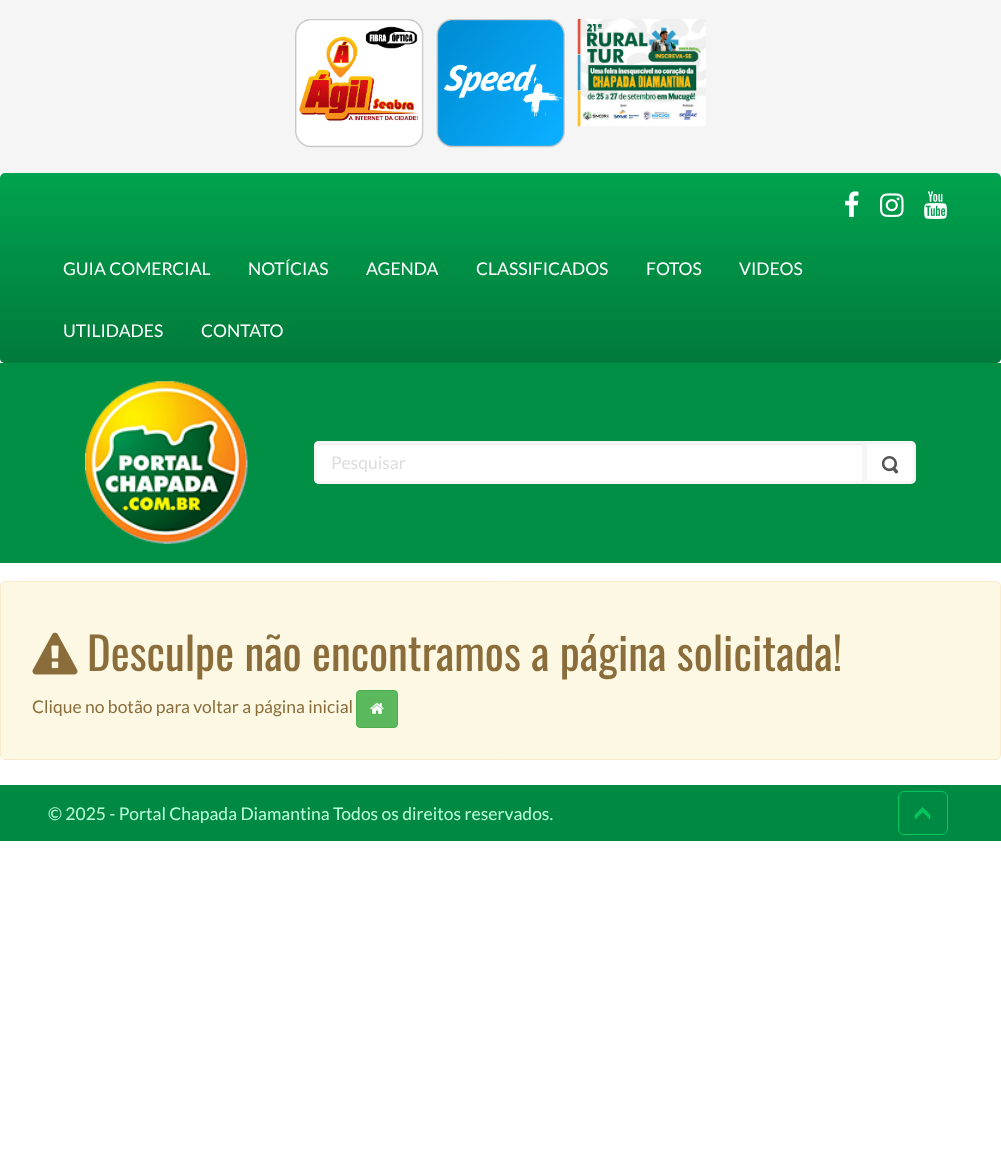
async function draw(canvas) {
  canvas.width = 1001;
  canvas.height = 1175;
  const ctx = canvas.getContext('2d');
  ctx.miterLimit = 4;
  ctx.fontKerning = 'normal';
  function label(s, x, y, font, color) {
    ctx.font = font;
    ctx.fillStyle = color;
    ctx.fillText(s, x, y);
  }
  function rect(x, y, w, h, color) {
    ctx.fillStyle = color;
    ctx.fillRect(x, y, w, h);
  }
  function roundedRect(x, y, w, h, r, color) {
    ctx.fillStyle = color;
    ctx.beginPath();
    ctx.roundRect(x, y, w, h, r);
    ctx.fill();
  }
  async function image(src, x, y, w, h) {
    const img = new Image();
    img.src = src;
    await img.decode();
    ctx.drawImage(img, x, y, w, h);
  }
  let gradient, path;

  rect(0, 0, 1001, 1175, '#fff');
  rect(0, 0, 1001, 173, '#f5f5f5');
  await image('assets/img1.png', 295, 19, 129, 129);
  await image('assets/img2.png', 436, 19, 129, 129);
  await image('assets/img3.png', 577, 18, 129, 109);
  roundedRect(0, 173, 1001, 190, 5, '#00a34e');
  gradient = ctx.createLinearGradient(501, 363, 501, 173);
  gradient.addColorStop(0, '#007a3b');
  gradient.addColorStop(1, '#007a3b00');
  ctx.fillStyle = gradient;
  ctx.beginPath();
  ctx.roundRect(0, 173, 1001, 190, 5);
  ctx.fill();
  await image('assets/img4.png', 845, 191, 14, 26);
  await image('assets/img5.png', 880, 193, 24, 24);
  await image('assets/img6.png', 924, 191, 23, 28);
  label('GUIA COMERCIAL', 63, 275, '17.5px Lato', '#fff');
  label('NOTÍCIAS', 248, 275, '17.5px Lato', '#fff');
  label('AGENDA', 366, 275, '17.5px Lato', '#fff');
  label('CLASSIFICADOS', 476, 275, '17.5px Lato', '#fff');
  label('FOTOS', 646, 275, '17.5px Lato', '#fff');
  label('VIDEOS', 739, 275, '17.5px Lato', '#fff');
  label('UTILIDADES', 63, 337, '17.5px Lato', '#fff');
  label('CONTATO', 201, 337, '17.5px Lato', '#fff');
  rect(0, 363, 1001, 200, '#008f45');
  await image('assets/img7.png', 85, 381, 163, 163);
  ctx.fillStyle = '#fff';
  ctx.beginPath();
  ctx.roundRect(865.5, 442.5, 49, 40, [0, 3.5, 3.5, 0]);
  ctx.fill();
  ctx.strokeStyle = '#f5f5f5';
  ctx.lineWidth = 3;
  ctx.stroke();
  ctx.beginPath();
  ctx.roundRect(314, 441, 551, 43, [5, 0, 0, 5]);
  ctx.fill();
  ctx.fillStyle = '#ececec';
  path = new Path2D('M319 445H862V481H863V444H318C316 444 316 446 316 448C316 446 317 445 319 445Z');
  ctx.fill(path);
  ctx.beginPath();
  ctx.roundRect(315.5, 442.5, 548, 40, [3.5, 0, 0, 3.5]);
  ctx.stroke();
  label('Pesquisar', 331, 469, '17.5px Lato', '#ddd');
  await image('assets/img8.png', 881, 456, 18, 18);
  ctx.fillStyle = '#fcf8e3';
  ctx.beginPath();
  ctx.roundRect(0.5, 581.5, 1000, 178, 4.5);
  ctx.fill();
  ctx.strokeStyle = '#faebcc';
  ctx.lineWidth = 1;
  ctx.stroke();
  await image('assets/img9.png', 32, 632, 46, 43);
  label('Desculpe não encontramos a página solicitada!', 87, 671, '45px Oswald', '#8a6d3b');
  label('Clique no botão para voltar a página inicial', 32, 713, '17.5px Lato', '#8a6d3b');
  ctx.fillStyle = '#5cb85c';
  ctx.beginPath();
  ctx.roundRect(356.5, 690.5, 41, 37, 3.5);
  ctx.fill();
  ctx.strokeStyle = '#4cae4c';
  ctx.stroke();
  await image('assets/img10.png', 370, 703, 14, 11);
  rect(0, 785, 1001, 56, '#008942');
  label('© 2025 - Portal Chapada Diamantina Todos os direitos reservados.', 48, 820, '17.5px Lato', '#bcffdc');
  ctx.beginPath();
  ctx.roundRect(898.5, 791.5, 49, 43, 5.5);
  ctx.strokeStyle = '#03c85f';
  ctx.stroke();
  await image('assets/img11.png', 914, 807, 17, 13);
}

draw(document.querySelector('canvas'));
